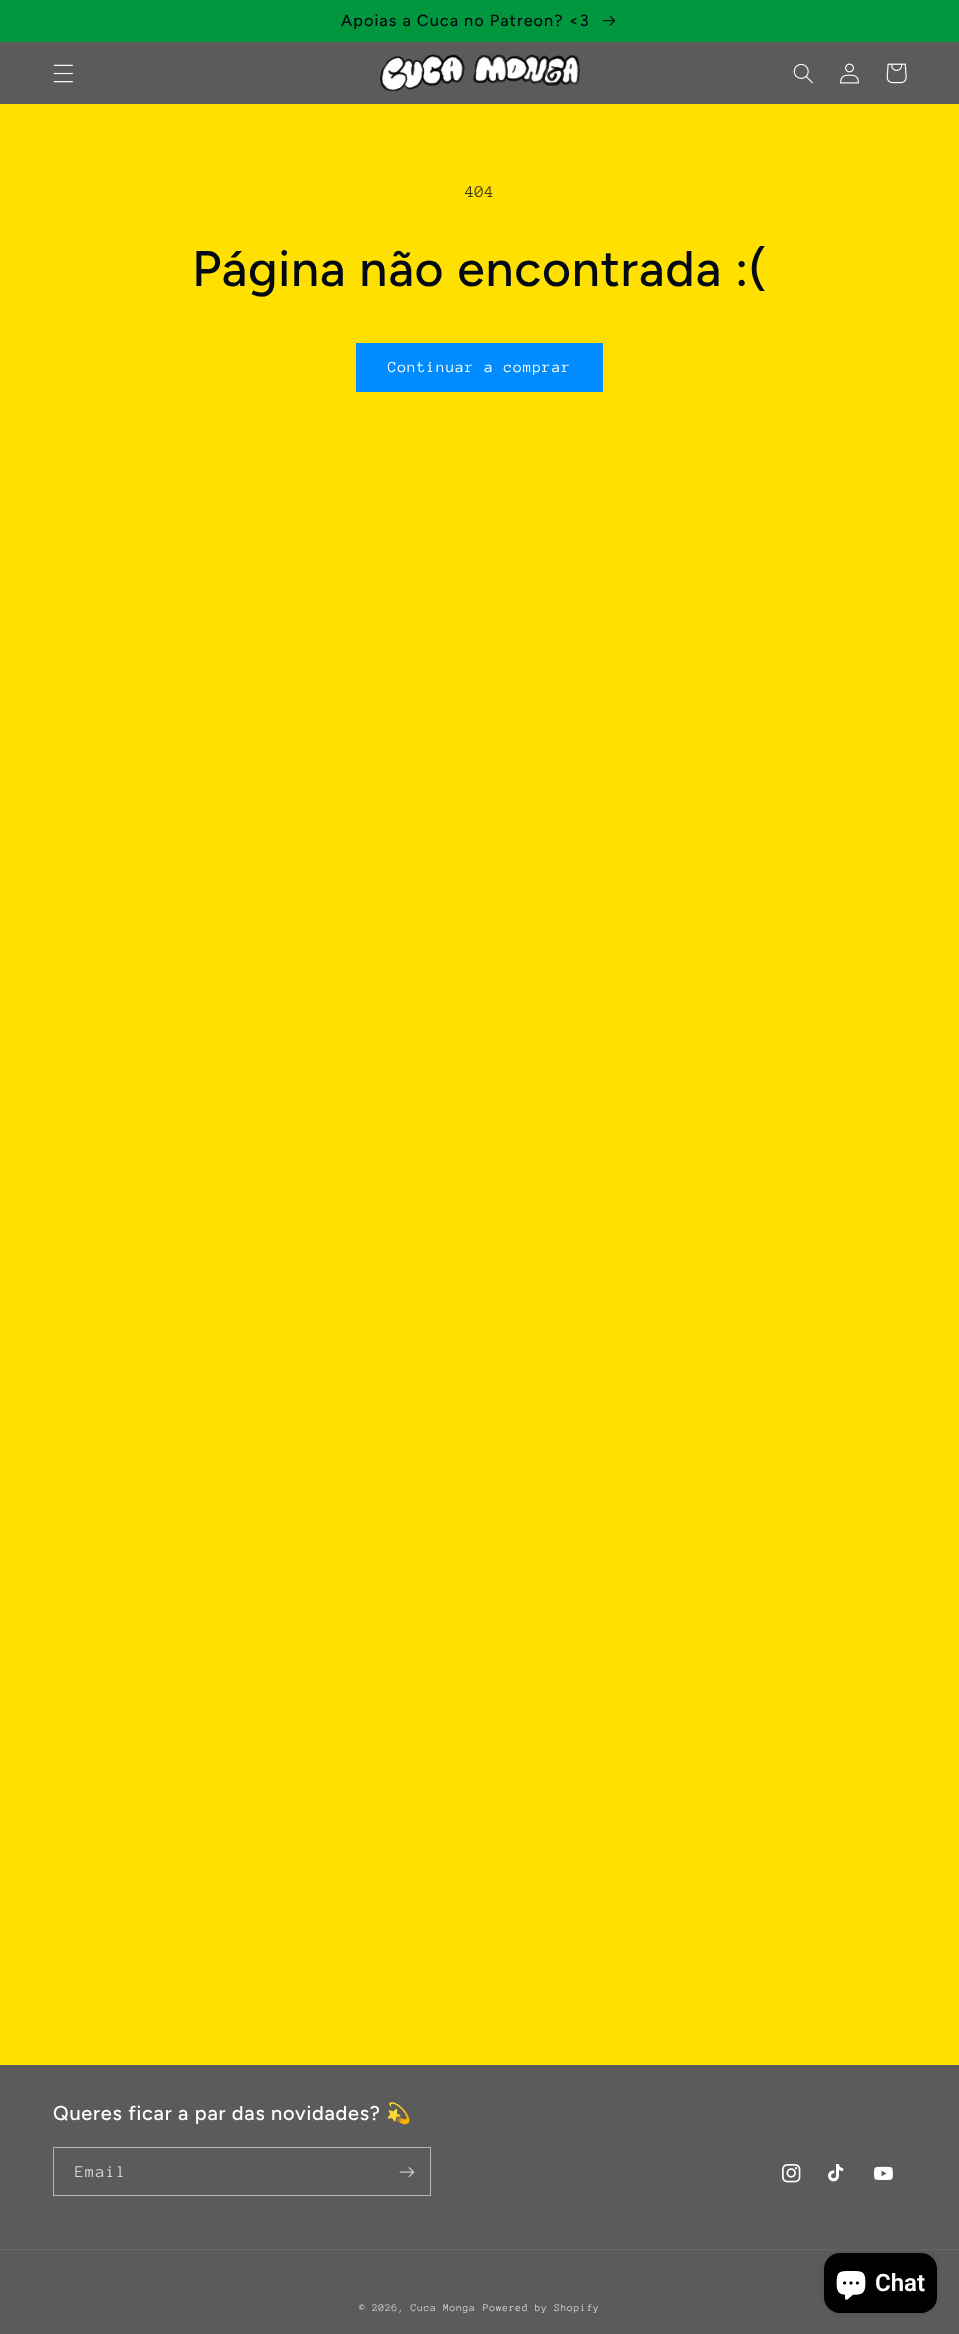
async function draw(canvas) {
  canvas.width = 959;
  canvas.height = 2334;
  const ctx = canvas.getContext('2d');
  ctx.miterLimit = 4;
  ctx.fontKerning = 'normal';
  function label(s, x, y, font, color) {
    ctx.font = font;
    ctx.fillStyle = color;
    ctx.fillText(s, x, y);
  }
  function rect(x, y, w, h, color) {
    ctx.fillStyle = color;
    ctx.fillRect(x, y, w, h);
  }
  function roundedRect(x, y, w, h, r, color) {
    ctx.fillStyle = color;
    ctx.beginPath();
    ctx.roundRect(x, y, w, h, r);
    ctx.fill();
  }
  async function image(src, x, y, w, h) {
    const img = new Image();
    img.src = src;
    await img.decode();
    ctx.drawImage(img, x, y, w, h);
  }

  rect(0, 0, 959, 2334, '#ffe000');
  rect(0, 41, 959, 1, '#00943d');
  rect(0, 0, 959, 41, '#00973e');
  ctx.letterSpacing = '1.05px';
  label('Apoias a Cuca no Patreon? <3', 341, 26, '500 16.25px Figtree', '#020912');
  await image('assets/img1.png', 603, 15, 13, 11);
  rect(0, 42, 959, 62, '#5b5b5b');
  await image('assets/img2.png', 53, 64, 20, 19);
  await image('assets/img3.png', 380, 54, 200, 38);
  await image('assets/img4.png', 793, 63, 20, 21);
  await image('assets/img5.png', 840, 63, 19, 21);
  await image('assets/img6.png', 886, 63, 21, 21);
  ctx.letterSpacing = '0.5px';
  label('404', 465, 197, '17px Anonymous Pro', '#413f0e');
  ctx.letterSpacing = '0.75px';
  label('Página não encontrada :(', 192, 286, '500 50px Figtree', '#020912');
  rect(356, 343, 247, 49, '#008cff');
  ctx.letterSpacing = '1.05px';
  label('Continuar a comprar', 388, 372, '15.75px Anonymous Pro', '#fff');
  rect(0, 2065, 959, 269, '#5b5b5b');
  ctx.letterSpacing = '0.75px';
  label('Queres ficar a par das novidades?', 53, 2120, '500 20px Figtree', '#fff');
  label('💫', 386, 2120, '20px Noto Color Emoji', '#fff');
  ctx.strokeStyle = '#b5b5b5';
  ctx.strokeRect(53.5, 2147.5, 377, 48);
  ctx.letterSpacing = '1.05px';
  label('Email', 75, 2177, '17px Anonymous Pro', '#d6d6d6');
  await image('assets/img7.png', 399, 2167, 15, 11);
  await image('assets/img8.png', 782, 2164, 19, 19);
  await image('assets/img9.png', 828, 2164, 16, 18);
  await image('assets/img10.png', 874, 2166, 19, 15);
  rect(0, 2249, 959, 1, '#686868');
  ctx.letterSpacing = '0.75px';
  label('© 2026, Cuca Monga', 359, 2311, '10.5px Anonymous Pro', '#d6d6d6');
  label('Powered by Shopify', 483, 2311, '10.5px Anonymous Pro', '#d6d6d6');
  ctx.fillStyle = '#00000026';
  ctx.filter = 'blur(2.5px)';
  ctx.beginPath();
  ctx.roundRect(824, 2253, 113, 60, 16);
  ctx.fill();
  ctx.filter = 'none';
  roundedRect(824, 2253, 113, 60, 16, '#000');
  await image('assets/img11.png', 836, 2271, 30, 29);
  ctx.letterSpacing = '0px';
  label('Chat', 875, 2291, '600 24px Roboto', '#fff');
}

draw(document.querySelector('canvas'));
